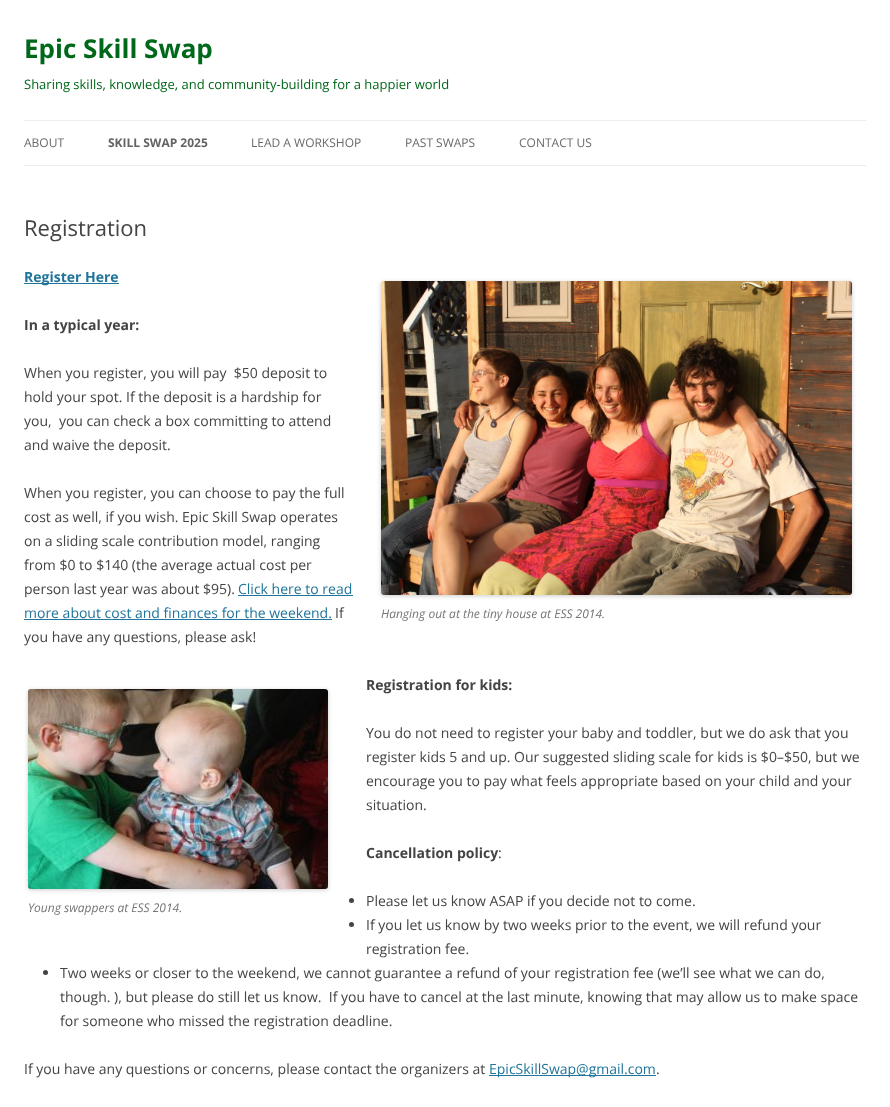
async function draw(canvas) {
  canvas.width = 890;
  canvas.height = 1107;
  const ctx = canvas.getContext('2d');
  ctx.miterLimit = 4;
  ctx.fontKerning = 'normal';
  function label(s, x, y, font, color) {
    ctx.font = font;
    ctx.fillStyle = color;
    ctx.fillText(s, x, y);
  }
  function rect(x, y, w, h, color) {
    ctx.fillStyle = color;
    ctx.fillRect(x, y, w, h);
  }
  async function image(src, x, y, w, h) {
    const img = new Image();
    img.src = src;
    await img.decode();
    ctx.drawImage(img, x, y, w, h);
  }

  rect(0, 0, 890, 1107, '#fff');
  label('Epic Skill Swap', 24, 58, 'bold 26px Open Sans', '#00681a');
  label('Sharing skills, knowledge, and community-building for a happier world', 24, 89, '13px Open Sans', '#00681a');
  rect(24, 120, 842, 1, '#ededed');
  rect(24, 165, 842, 1, '#ededed');
  label('ABOUT', 24, 147, '12px Open Sans', '#6a6a6a');
  label('SKILL SWAP 2025', 108, 147, 'bold 12px Open Sans', '#636363');
  label('LEAD A WORKSHOP', 251, 147, '12px Open Sans', '#6a6a6a');
  label('PAST SWAPS', 405, 147, '12px Open Sans', '#6a6a6a');
  label('CONTACT US', 519, 147, '12px Open Sans', '#6a6a6a');
  label('Registration', 24, 236, '22px Open Sans', '#444');
  rect(24, 283, 95, 1, '#21759b');
  label('Register Here', 24, 282, 'bold 14px Open Sans', '#21759b');
  label('In a typical year:', 24, 330, 'bold 14px Open Sans', '#444');
  label('When you register, you will pay  $50 deposit to', 24, 378, '14px Open Sans', '#444');
  label('hold your spot. If the deposit is a hardship for', 24, 402, '14px Open Sans', '#444');
  label('you,  you can check a box committing to attend', 24, 426, '14px Open Sans', '#444');
  label('and waive the deposit.', 24, 450, '14px Open Sans', '#444');
  label('When you register, you can choose to pay the full', 24, 498, '14px Open Sans', '#444');
  label('cost as well, if you wish. Epic Skill Swap operates', 24, 522, '14px Open Sans', '#444');
  label('on a sliding scale contribution model, ranging', 24, 546, '14px Open Sans', '#444');
  label('from $0 to $140 (the average actual cost per', 24, 570, '14px Open Sans', '#444');
  label('person last year was about $95).', 24, 594, '14px Open Sans', '#444');
  label('Click here to read', 238, 594, '14px Open Sans', '#21759b');
  rect(238, 595, 115, 1, '#21759b');
  label('more about cost and finances for the weekend.', 24, 618, '14px Open Sans', '#21759b');
  rect(24, 619, 308, 1, '#21759b');
  label('If', 335, 618, '14px Open Sans', '#444');
  label('you have any questions, please ask!', 24, 642, '14px Open Sans', '#444');
  ctx.fillStyle = '#00000033';
  ctx.filter = 'blur(2px)';
  ctx.beginPath();
  ctx.roundRect(381, 282, 471, 314, 3);
  ctx.fill();
  ctx.filter = 'none';
  await image('assets/img1.png', 381, 281, 471, 314);
  label('Hanging out at the tiny house at ESS 2014.', 381, 618, 'italic 12px Open Sans', '#757575');
  label('Registration for kids:', 366, 690, 'bold 14px Open Sans', '#444');
  label('You do not need to register your baby and toddler, but we do ask that you', 366, 738, '14px Open Sans', '#444');
  label('register kids 5 and up. Our suggested sliding scale for kids is $0–$50, but we', 366, 762, '14px Open Sans', '#444');
  label('encourage you to pay what feels appropriate based on your child and your', 366, 786, '14px Open Sans', '#444');
  label('situation.', 366, 810, '14px Open Sans', '#444');
  label('Cancellation policy', 366, 858, 'bold 14px Open Sans', '#444');
  label(':', 498, 858, '14px Open Sans', '#444');
  ctx.beginPath();
  ctx.arc(351.5, 900.5, 2.5, 0, 2 * Math.PI);
  ctx.fill();
  label('Please let us know ASAP if you decide not to come.', 366, 906, '14px Open Sans', '#444');
  ctx.beginPath();
  ctx.arc(351.5, 924.5, 2.5, 0, 2 * Math.PI);
  ctx.fill();
  label('If you let us know by two weeks prior to the event, we will refund your', 366, 930, '14px Open Sans', '#444');
  label('registration fee.', 366, 954, '14px Open Sans', '#444');
  ctx.beginPath();
  ctx.arc(45.5, 972.5, 2.5, 0, 2 * Math.PI);
  ctx.fill();
  label('Two weeks or closer to the weekend, we cannot guarantee a refund of your registration fee (we’ll see what we can do,', 60, 978, '14px Open Sans', '#444');
  label('though. ), but please do still let us know.  If you have to cancel at the last minute, knowing that may allow us to make space', 60, 1002, '14px Open Sans', '#444');
  label('for someone who missed the registration deadline.', 60, 1026, '14px Open Sans', '#444');
  ctx.fillStyle = '#00000033';
  ctx.filter = 'blur(2px)';
  ctx.beginPath();
  ctx.roundRect(28, 690, 300, 200, 3);
  ctx.fill();
  ctx.filter = 'none';
  await image('assets/img2.png', 28, 689, 300, 200);
  label('Young swappers at ESS 2014.', 28, 912, 'italic 12px Open Sans', '#757575');
  label('If you have any questions or concerns, please contact the organizers at', 24, 1074, '14px Open Sans', '#444');
  rect(489, 1075, 167, 1, '#21759b');
  label('EpicSkillSwap@gmail.com', 489, 1074, '14px Open Sans', '#21759b');
  label('.', 656, 1074, '14px Open Sans', '#444');
}

draw(document.querySelector('canvas'));
